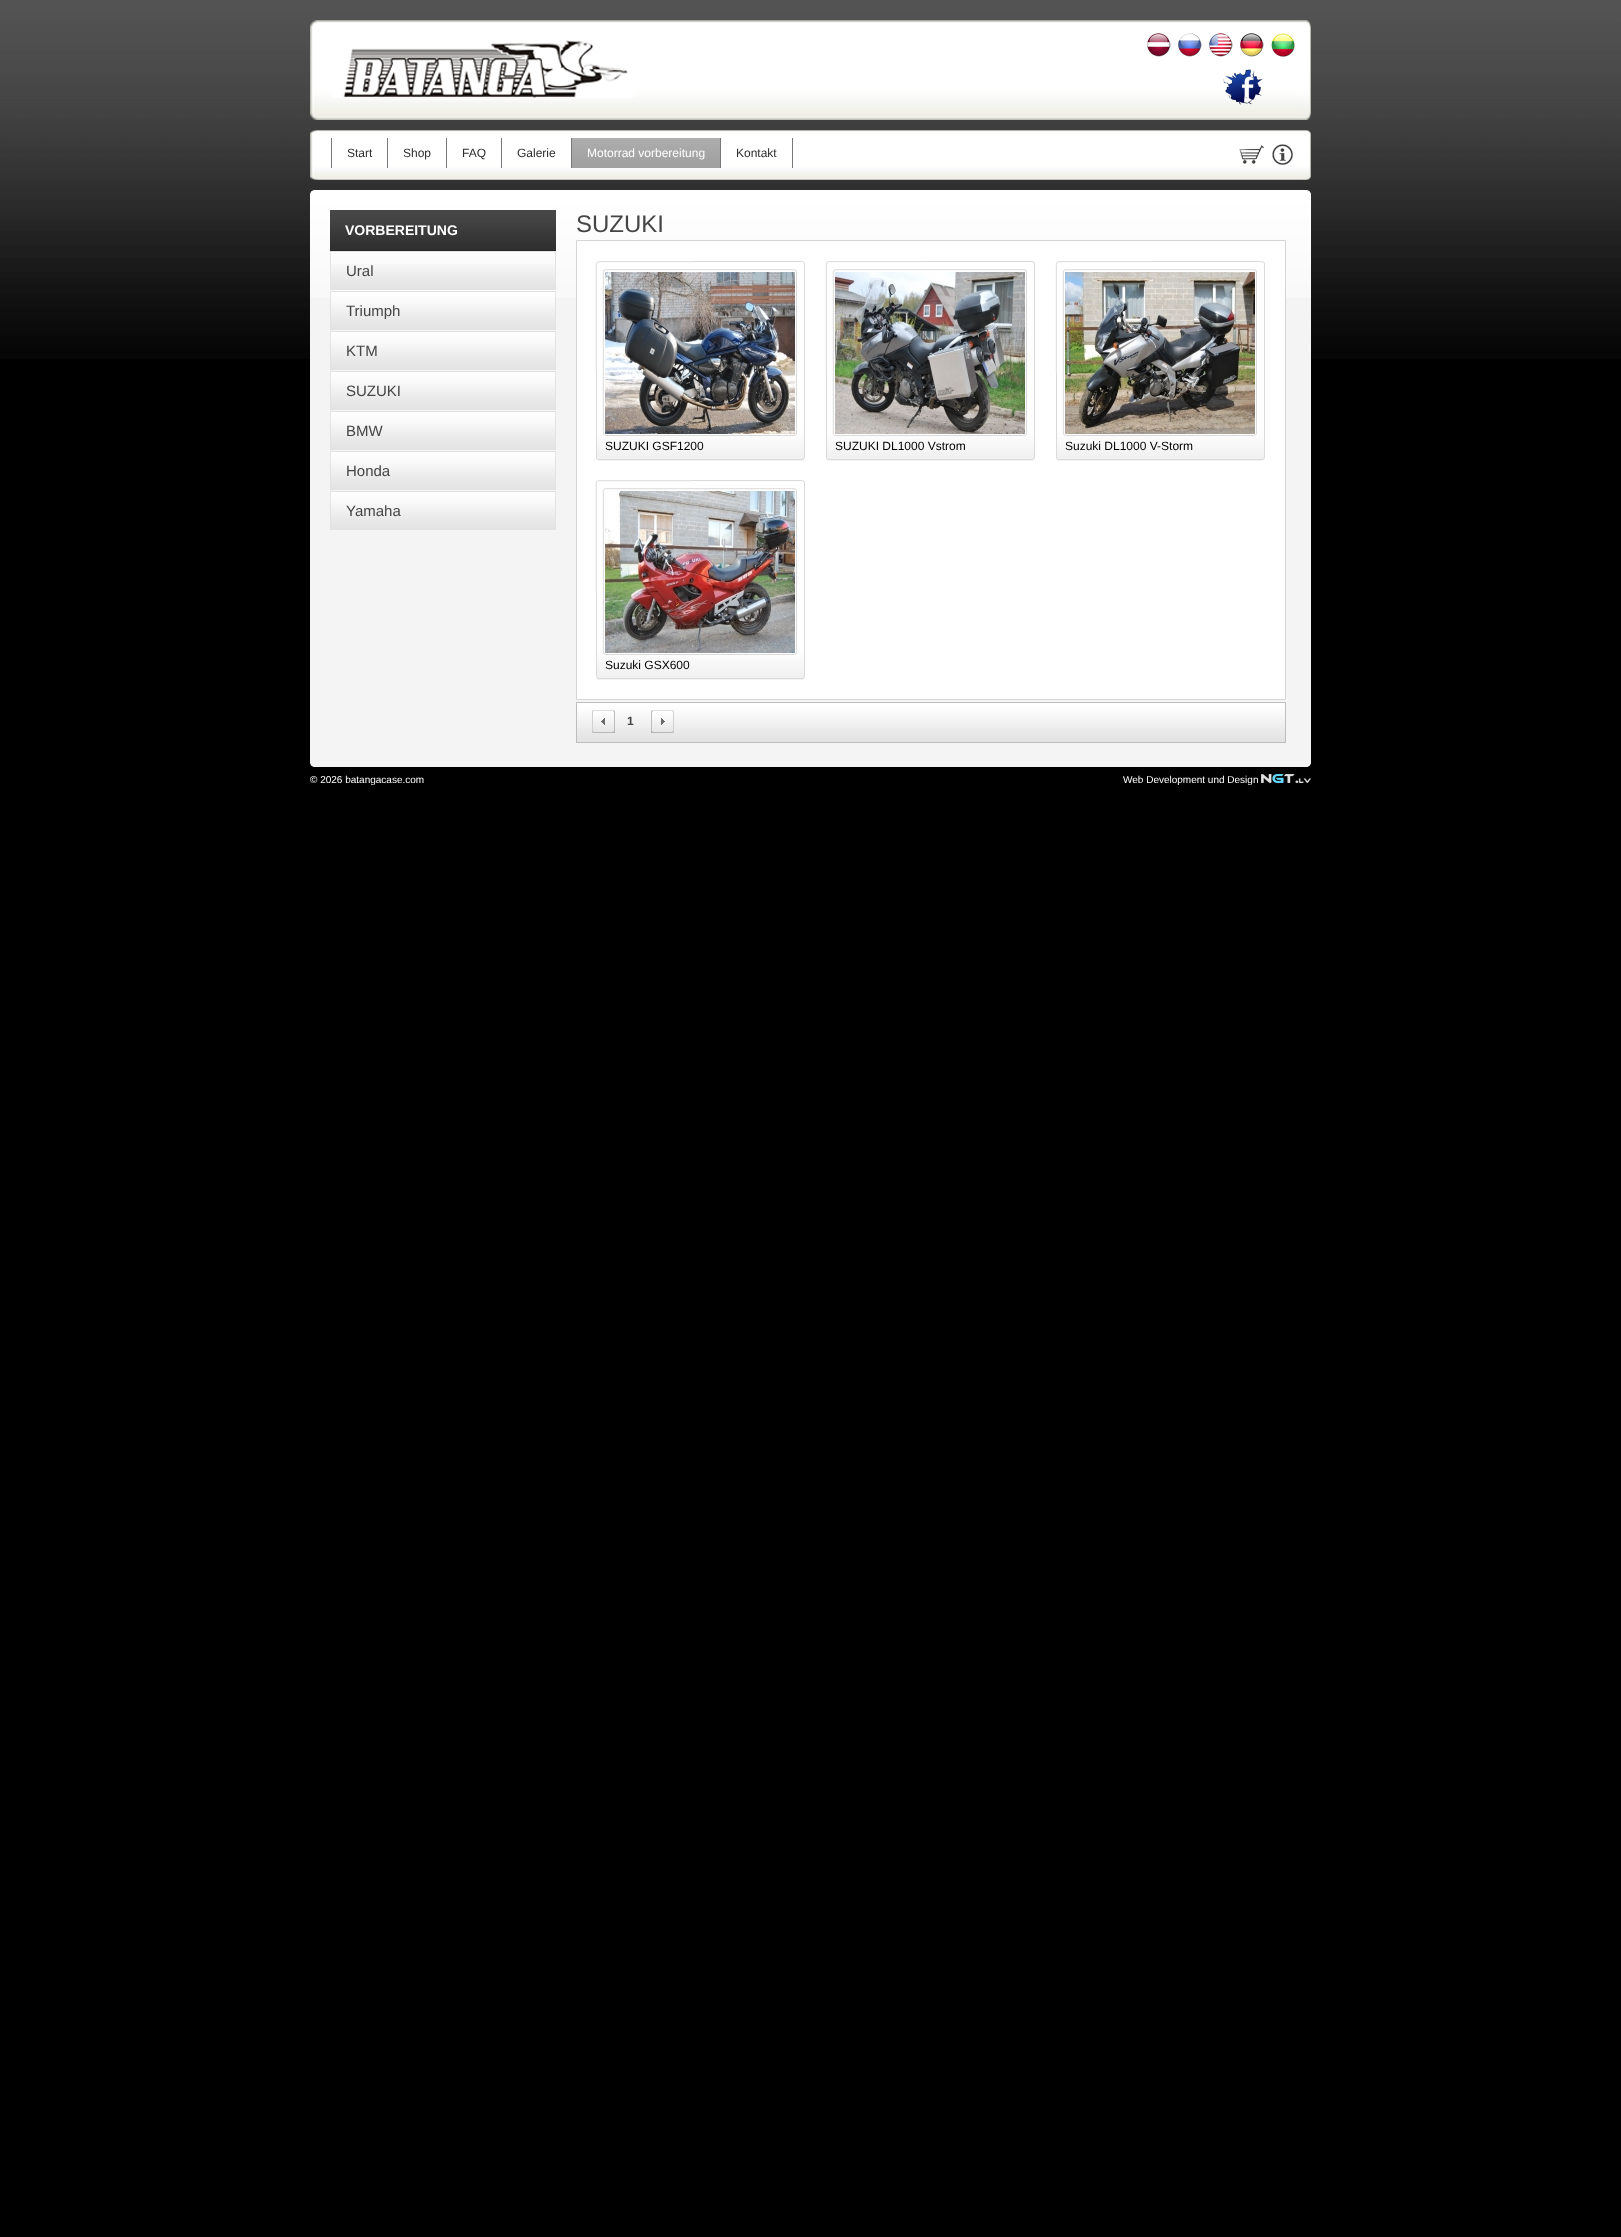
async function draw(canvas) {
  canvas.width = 1621;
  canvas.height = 2237;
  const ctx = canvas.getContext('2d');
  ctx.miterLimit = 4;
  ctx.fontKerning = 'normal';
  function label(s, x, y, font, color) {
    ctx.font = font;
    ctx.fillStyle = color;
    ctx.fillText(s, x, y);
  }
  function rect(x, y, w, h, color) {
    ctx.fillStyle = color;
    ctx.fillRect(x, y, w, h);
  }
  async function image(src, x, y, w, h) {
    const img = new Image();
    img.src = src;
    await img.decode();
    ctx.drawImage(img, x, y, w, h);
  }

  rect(0, 0, 1621, 2237, '#000');
  await image('assets/img1.png', 0, 0, 1621, 359);
  await image('assets/img2.png', 310, 20, 13, 100);
  await image('assets/img3.png', 323, 20, 975, 100);
  await image('assets/img4.png', 333, 40, 300, 58);
  await image('assets/img5.png', 1147, 33, 24, 24);
  await image('assets/img6.png', 1178, 33, 24, 24);
  await image('assets/img7.png', 1209, 33, 24, 24);
  await image('assets/img8.png', 1240, 33, 24, 24);
  await image('assets/img9.png', 1271, 33, 24, 24);
  await image('assets/img10.png', 1223, 69, 40, 36);
  await image('assets/img11.png', 1298, 20, 13, 100);
  await image('assets/img12.png', 310, 130, 13, 50);
  await image('assets/img13.png', 323, 130, 975, 50);
  rect(331, 138, 1, 30, '#777');
  label('Start', 347, 157, '12px Liberation Sans', '#2d2b2b');
  rect(446, 138, 1, 30, '#777');
  rect(387, 138, 1, 30, '#777');
  label('Shop', 403, 157, '12px Liberation Sans', '#2d2b2b');
  rect(501, 138, 1, 30, '#777');
  label('FAQ', 462, 157, '12px Liberation Sans', '#2d2b2b');
  rect(571, 138, 1, 30, '#777');
  label('Galerie', 517, 157, '12px Liberation Sans', '#2d2b2b');
  await image('assets/img14.png', 572, 138, 148, 30);
  rect(720, 138, 1, 30, '#777');
  label('Motorrad vorbereitung', 587, 157, '12px Liberation Sans', '#fff');
  rect(792, 138, 1, 30, '#777');
  label('Kontakt', 736, 157, '12px Liberation Sans', '#2d2b2b');
  await image('assets/img15.png', 1239, 145, 25, 19);
  await image('assets/img16.png', 1272, 144, 21, 21);
  await image('assets/img17.png', 1298, 130, 13, 50);
  await image('assets/img18.png', 310, 190, 1001, 10);
  rect(310, 298, 1001, 463, '#f4f4f4');
  await image('assets/img19.png', 310, 200, 1001, 98);
  await image('assets/img20.png', 330, 210, 226, 41);
  label('VORBEREITUNG', 345, 235, 'bold 14px Liberation Sans', '#fff');
  await image('assets/img21.png', 331, 264, 224, 25);
  ctx.strokeStyle = '#e3e3e3';
  ctx.strokeRect(330.5, 251.5, 225, 38);
  label('Ural', 346, 276, '15px Liberation Sans', '#454545');
  await image('assets/img22.png', 331, 292, 224, 37);
  ctx.strokeRect(330.5, 291.5, 225, 38);
  label('Triumph', 346, 316, '15px Liberation Sans', '#454545');
  await image('assets/img22.png', 331, 332, 224, 37);
  ctx.strokeRect(330.5, 331.5, 225, 38);
  label('KTM', 346, 356, '15px Liberation Sans', '#454545');
  await image('assets/img22.png', 331, 372, 224, 37);
  ctx.strokeRect(330.5, 371.5, 225, 38);
  label('SUZUKI', 346, 396, '15px Liberation Sans', '#454545');
  await image('assets/img22.png', 331, 412, 224, 37);
  ctx.strokeRect(330.5, 411.5, 225, 38);
  label('BMW', 346, 436, '15px Liberation Sans', '#454545');
  await image('assets/img22.png', 331, 452, 224, 37);
  ctx.strokeRect(330.5, 451.5, 225, 38);
  label('Honda', 346, 476, '15px Liberation Sans', '#454545');
  await image('assets/img22.png', 331, 492, 224, 37);
  ctx.strokeRect(330.5, 491.5, 225, 38);
  label('Yamaha', 346, 516, '15px Liberation Sans', '#454545');
  label('SUZUKI', 576, 232, '24px Liberation Sans', '#454545');
  ctx.fillStyle = '#fff';
  ctx.beginPath();
  ctx.rect(576.5, 240.5, 709, 459);
  ctx.fill();
  ctx.strokeStyle = '#d5d5d5';
  ctx.stroke();
  await image('assets/img23.png', 595, 261, 210, 200);
  await image('assets/img24.png', 605, 272, 190, 162);
  label('SUZUKI GSF1200', 605, 450, '12px Liberation Sans', '#000');
  await image('assets/img23.png', 825, 261, 210, 200);
  await image('assets/img25.png', 835, 272, 190, 162);
  label('SUZUKI DL1000 Vstrom', 835, 450, '12px Liberation Sans', '#000');
  await image('assets/img23.png', 1055, 261, 210, 200);
  await image('assets/img26.png', 1065, 272, 190, 162);
  label('Suzuki DL1000 V-Storm', 1065, 450, '12px Liberation Sans', '#000');
  await image('assets/img23.png', 595, 480, 210, 200);
  await image('assets/img27.png', 605, 491, 190, 162);
  label('Suzuki GSX600', 605, 669, '12px Liberation Sans', '#000');
  await image('assets/img28.png', 577, 703, 708, 39);
  ctx.strokeStyle = '#bdbdbd';
  ctx.strokeRect(576.5, 702.5, 709, 40);
  await image('assets/img29.png', 592, 710, 23, 23);
  label('1', 627, 725, 'bold 12px Liberation Sans', '#454545');
  await image('assets/img30.png', 651, 710, 23, 23);
  await image('assets/img31.png', 310, 761, 1001, 6);
  label('© 2026 batangacase.com', 310, 783, '10px Liberation Sans', '#fff');
  label('Web Development und Design', 1123, 783, '10px Liberation Sans', '#fff');
  await image('assets/img32.png', 1261, 774, 50, 9);
}

draw(document.querySelector('canvas'));
